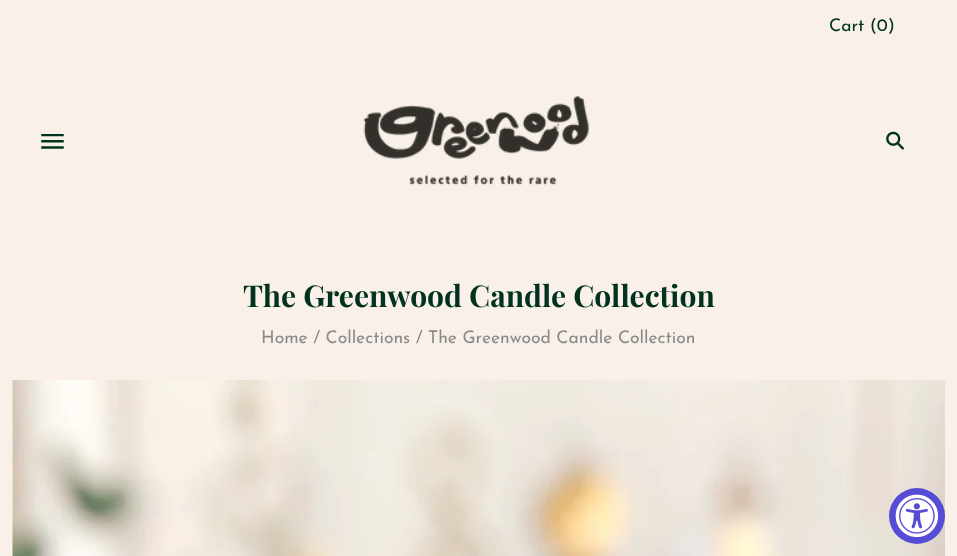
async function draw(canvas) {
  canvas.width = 957;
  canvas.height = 556;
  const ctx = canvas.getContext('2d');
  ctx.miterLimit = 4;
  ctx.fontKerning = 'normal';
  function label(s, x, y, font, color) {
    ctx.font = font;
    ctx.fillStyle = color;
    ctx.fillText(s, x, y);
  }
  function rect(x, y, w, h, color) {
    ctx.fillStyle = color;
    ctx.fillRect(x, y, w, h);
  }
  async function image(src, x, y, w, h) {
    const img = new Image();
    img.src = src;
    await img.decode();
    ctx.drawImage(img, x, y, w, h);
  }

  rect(0, 0, 957, 556, '#f9f1e9');
  label('Cart (0)', 829, 31, '100 17.5px Josefin Sans', '#013220');
  await image('assets/img1.png', 41, 134, 23, 15);
  await image('assets/img2.png', 363, 96, 226, 90);
  await image('assets/img3.png', 886, 131, 19, 19);
  label('The Greenwood Candle Collection', 243, 307, 'bold 30px Playfair Display', '#013220');
  label('Home / Collections / The Greenwood Candle Collection', 261, 343, '100 17.5px Josefin Sans', '#8a8a8a');
  await image('assets/img4.png', 12, 380, 933, 176);
  ctx.fillStyle = '#574cd5';
  ctx.beginPath();
  ctx.arc(917, 516, 28, 0, 2 * Math.PI);
  ctx.fill();
  await image('assets/img5.png', 895, 494, 44, 44);
}

draw(document.querySelector('canvas'));
